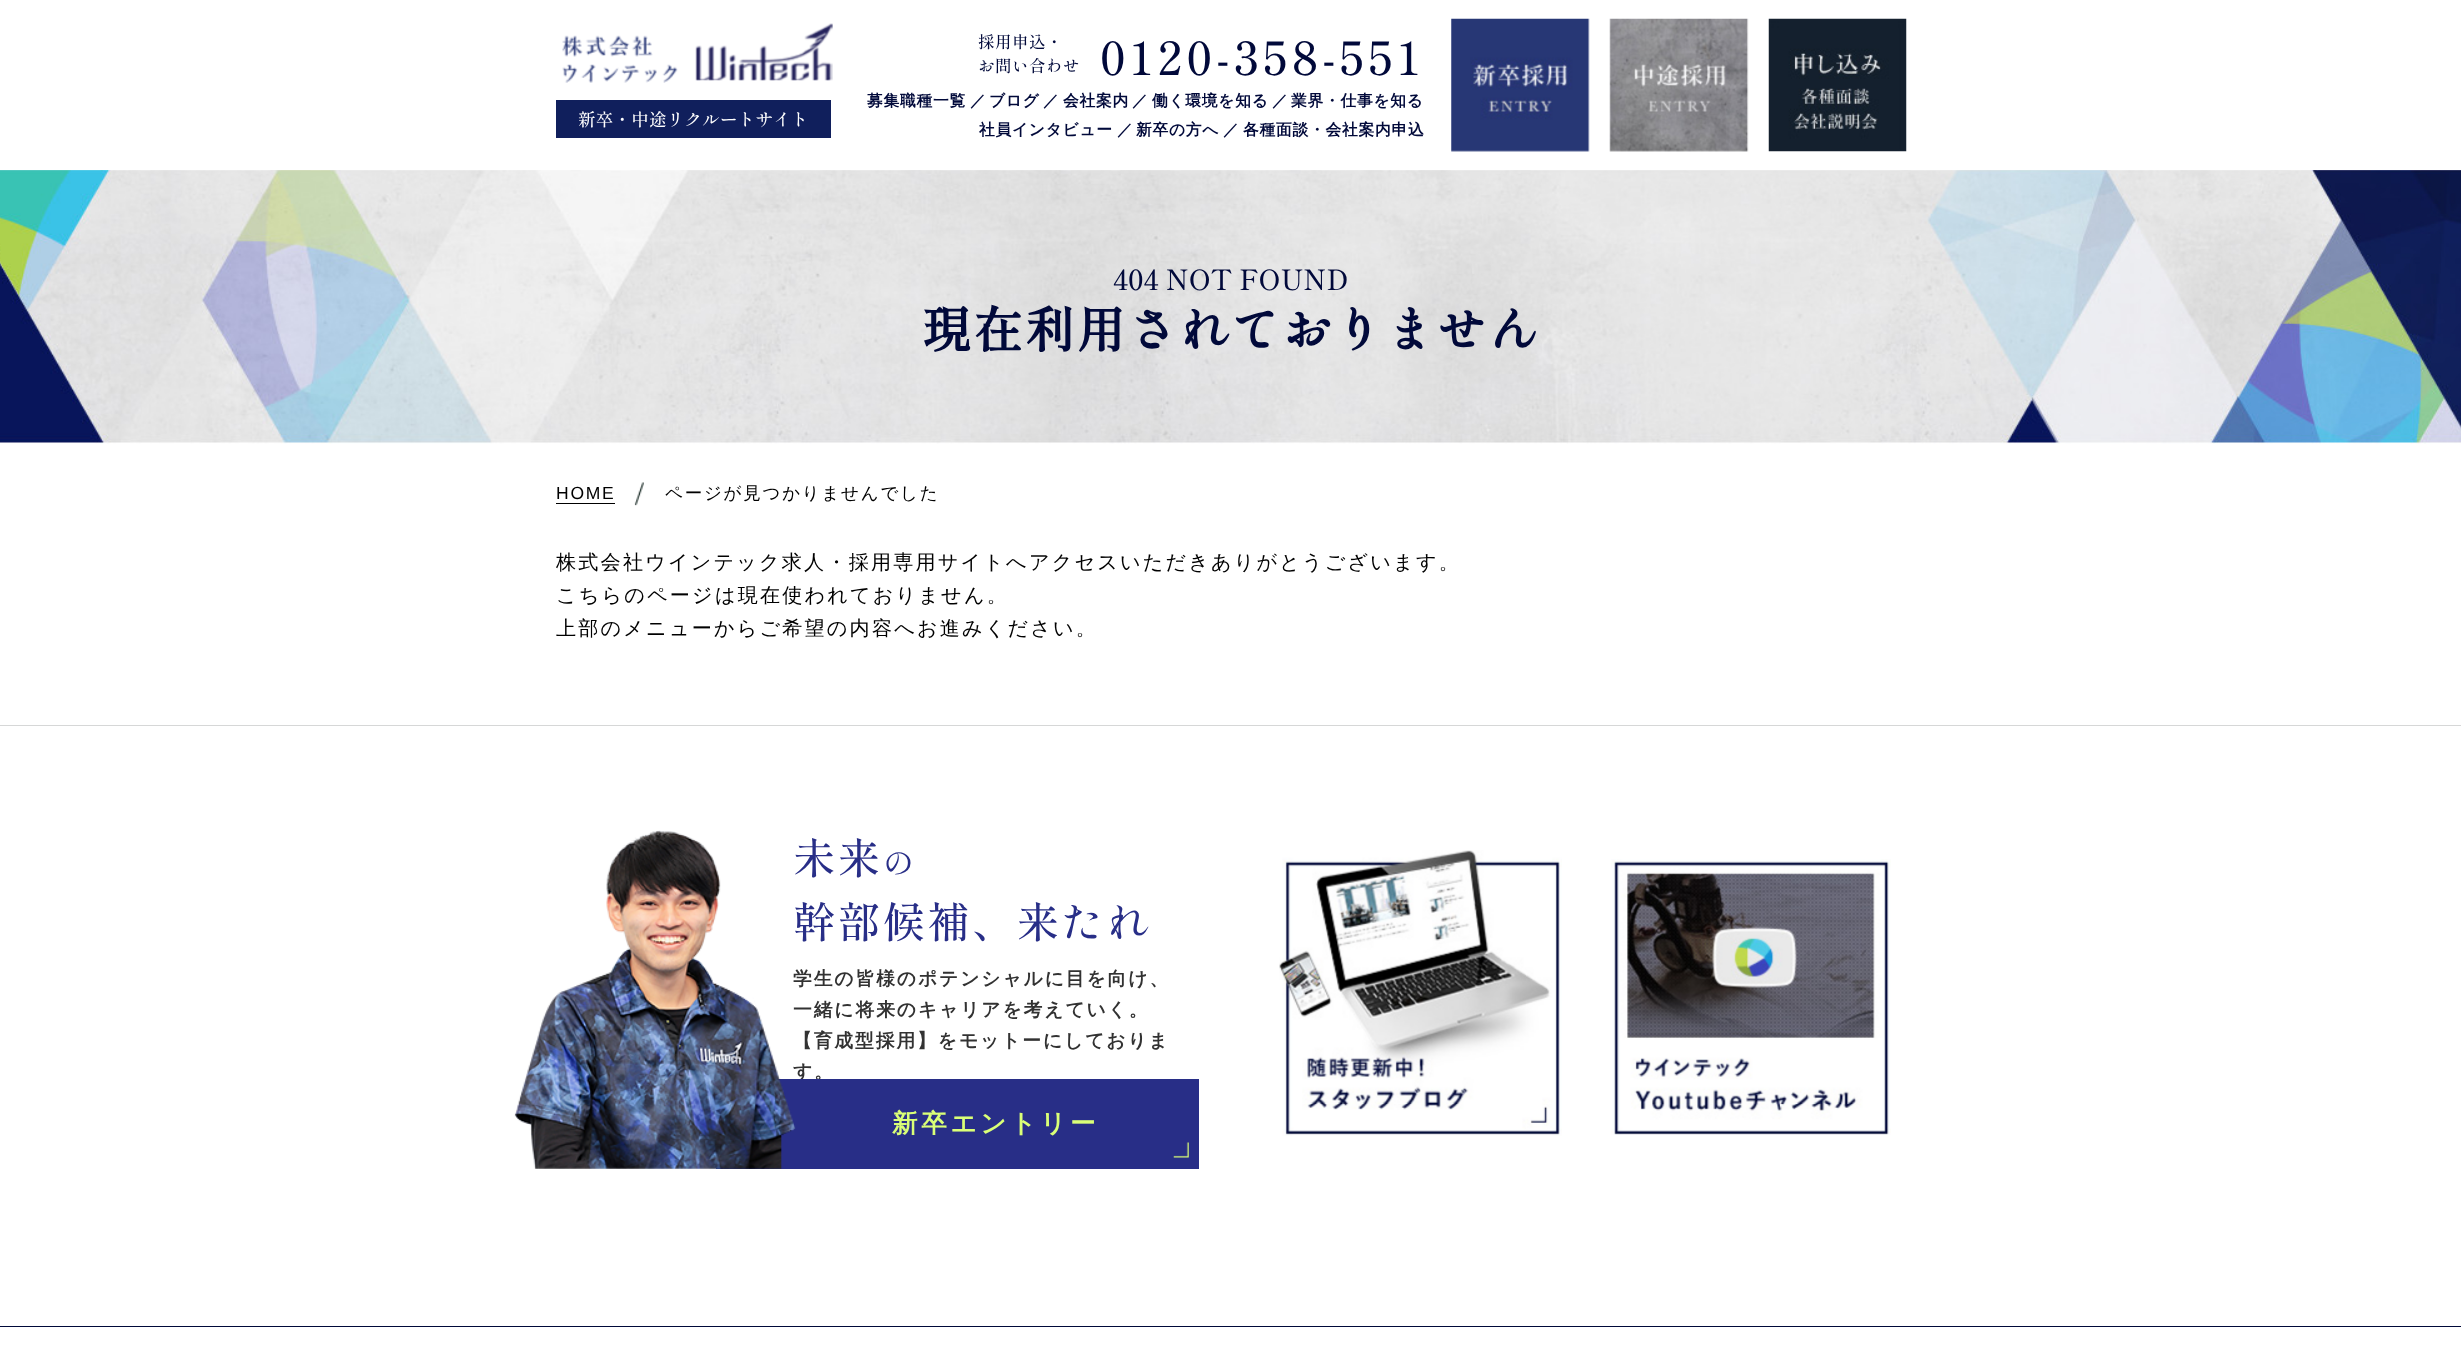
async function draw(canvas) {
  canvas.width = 2461;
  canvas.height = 1356;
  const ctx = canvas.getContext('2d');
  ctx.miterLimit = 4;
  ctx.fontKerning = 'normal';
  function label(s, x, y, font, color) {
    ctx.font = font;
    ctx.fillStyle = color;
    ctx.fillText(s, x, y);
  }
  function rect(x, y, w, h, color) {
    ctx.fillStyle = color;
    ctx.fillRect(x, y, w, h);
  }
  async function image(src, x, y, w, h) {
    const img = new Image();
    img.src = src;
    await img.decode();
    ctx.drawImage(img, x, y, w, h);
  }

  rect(0, 0, 2461, 1356, '#fff');
  await image('assets/img1.png', 562, 23, 271, 60);
  rect(556, 100, 275, 38, '#101f5c');
  ctx.letterSpacing = '0.25px';
  label('新卒・中途リクルートサイト', 578, 126, '500 17.5px Shippori Mincho', '#fff');
  ctx.letterSpacing = '0.5px';
  label('採用申込・', 978, 48, '500 16.5px Shippori Mincho', '#01093a');
  label('お問い合わせ', 978, 72, '500 16.5px Shippori Mincho', '#01093a');
  ctx.letterSpacing = '4.1px';
  label('0120-358-551', 1100, 75, '500 46px Shippori Mincho', '#01093a');
  ctx.letterSpacing = '0.75px';
  label('募集職種一覧', 867, 106, 'bold 15.75px WenQuanYi Zen Hei', '#01093a');
  label('／', 970, 106, 'bold 15.75px WenQuanYi Zen Hei', '#01093a');
  label('ブログ', 989, 106, 'bold 15.75px WenQuanYi Zen Hei', '#01093a');
  label('／', 1043, 106, 'bold 15.75px WenQuanYi Zen Hei', '#01093a');
  label('会社案内', 1063, 106, 'bold 15.75px WenQuanYi Zen Hei', '#01093a');
  label('／', 1132, 106, 'bold 15.75px WenQuanYi Zen Hei', '#01093a');
  label('働く環境を知る', 1152, 106, 'bold 15.75px WenQuanYi Zen Hei', '#01093a');
  label('／', 1272, 106, 'bold 15.75px WenQuanYi Zen Hei', '#01093a');
  label('業界・仕事を知る', 1291, 106, 'bold 15.75px WenQuanYi Zen Hei', '#01093a');
  label('社員インタビュー', 979, 135, 'bold 15.75px WenQuanYi Zen Hei', '#01093a');
  label('／', 1117, 135, 'bold 15.75px WenQuanYi Zen Hei', '#01093a');
  label('新卒の方へ', 1136, 135, 'bold 15.75px WenQuanYi Zen Hei', '#01093a');
  label('／', 1223, 135, 'bold 15.75px WenQuanYi Zen Hei', '#01093a');
  label('各種面談・会社案内申込', 1243, 135, 'bold 15.75px WenQuanYi Zen Hei', '#01093a');
  await image('assets/img2.png', 1451, 18, 139, 134);
  await image('assets/img3.png', 1609, 18, 140, 134);
  await image('assets/img4.png', 1768, 18, 139, 134);
  await image('assets/img5.png', 0, 170, 2461, 274);
  rect(0, 725, 2461, 1, '#d6d7d7');
  ctx.letterSpacing = '0px';
  label('404 NOT FOUND', 1113, 290, '500 28px Shippori Mincho', '#01093a');
  ctx.letterSpacing = '2.5px';
  label('現在利用されておりません', 922, 348, 'bold 49px Shippori Mincho', '#01093a');
  ctx.letterSpacing = '1.75px';
  label('HOME', 556, 499, '17.5px Liberation Sans', '#000');
  rect(556, 503, 59, 1, '#000');
  await image('assets/img6.png', 634, 482, 10, 24);
  label('ページが見つかりませんでした', 665, 499, '500 17.5px WenQuanYi Zen Hei', '#000');
  ctx.letterSpacing = '2.2px';
  label('株式会社ウインテック求人・採用専用サイトへアクセスいただきありがとうございます。', 556, 569, '500 20.1px WenQuanYi Zen Hei', '#000');
  label('こちらのページは現在使われておりません。', 556, 602, '500 20.1px WenQuanYi Zen Hei', '#000');
  label('上部のメニューからご希望の内容へお進みください。', 556, 635, '500 20.1px WenQuanYi Zen Hei', '#000');
  ctx.letterSpacing = '2.25px';
  label('未来', 793, 874, '500 42.5px Shippori Mincho', '#282e87');
  label('幹部候補、来たれ', 793, 938, '500 42.5px Shippori Mincho', '#282e87');
  ctx.letterSpacing = '1.9px';
  label('学生の皆様のポテンシャルに目を向け、', 793, 985, 'bold 18.8px WenQuanYi Zen Hei', '#323232');
  label('一緒に将来のキャリアを考えていく。', 793, 1016, 'bold 18.8px WenQuanYi Zen Hei', '#323232');
  label('す。', 793, 1078, 'bold 18.8px WenQuanYi Zen Hei', '#323232');
  rect(716, 1079, 483, 90, '#282e87');
  await image('assets/img7.png', 514, 830, 282, 339);
  ctx.letterSpacing = '2.25px';
  label('の', 883, 874, '500 31px Shippori Mincho', '#282e87');
  ctx.letterSpacing = '1.9px';
  label('【育成型採用】をモットーにしておりま', 793, 1047, 'bold 18.8px WenQuanYi Zen Hei', '#323232');
  await image('assets/img8.png', 1173, 1142, 16, 16);
  ctx.letterSpacing = '3.75px';
  label('新卒エントリー', 892, 1132, 'bold 25.5px WenQuanYi Zen Hei', '#daff77');
  await image('assets/img9.png', 1279, 850, 283, 286);
  await image('assets/img10.png', 1611, 859, 280, 276);
  rect(0, 1326, 2461, 1, '#000939');
}

draw(document.querySelector('canvas'));
